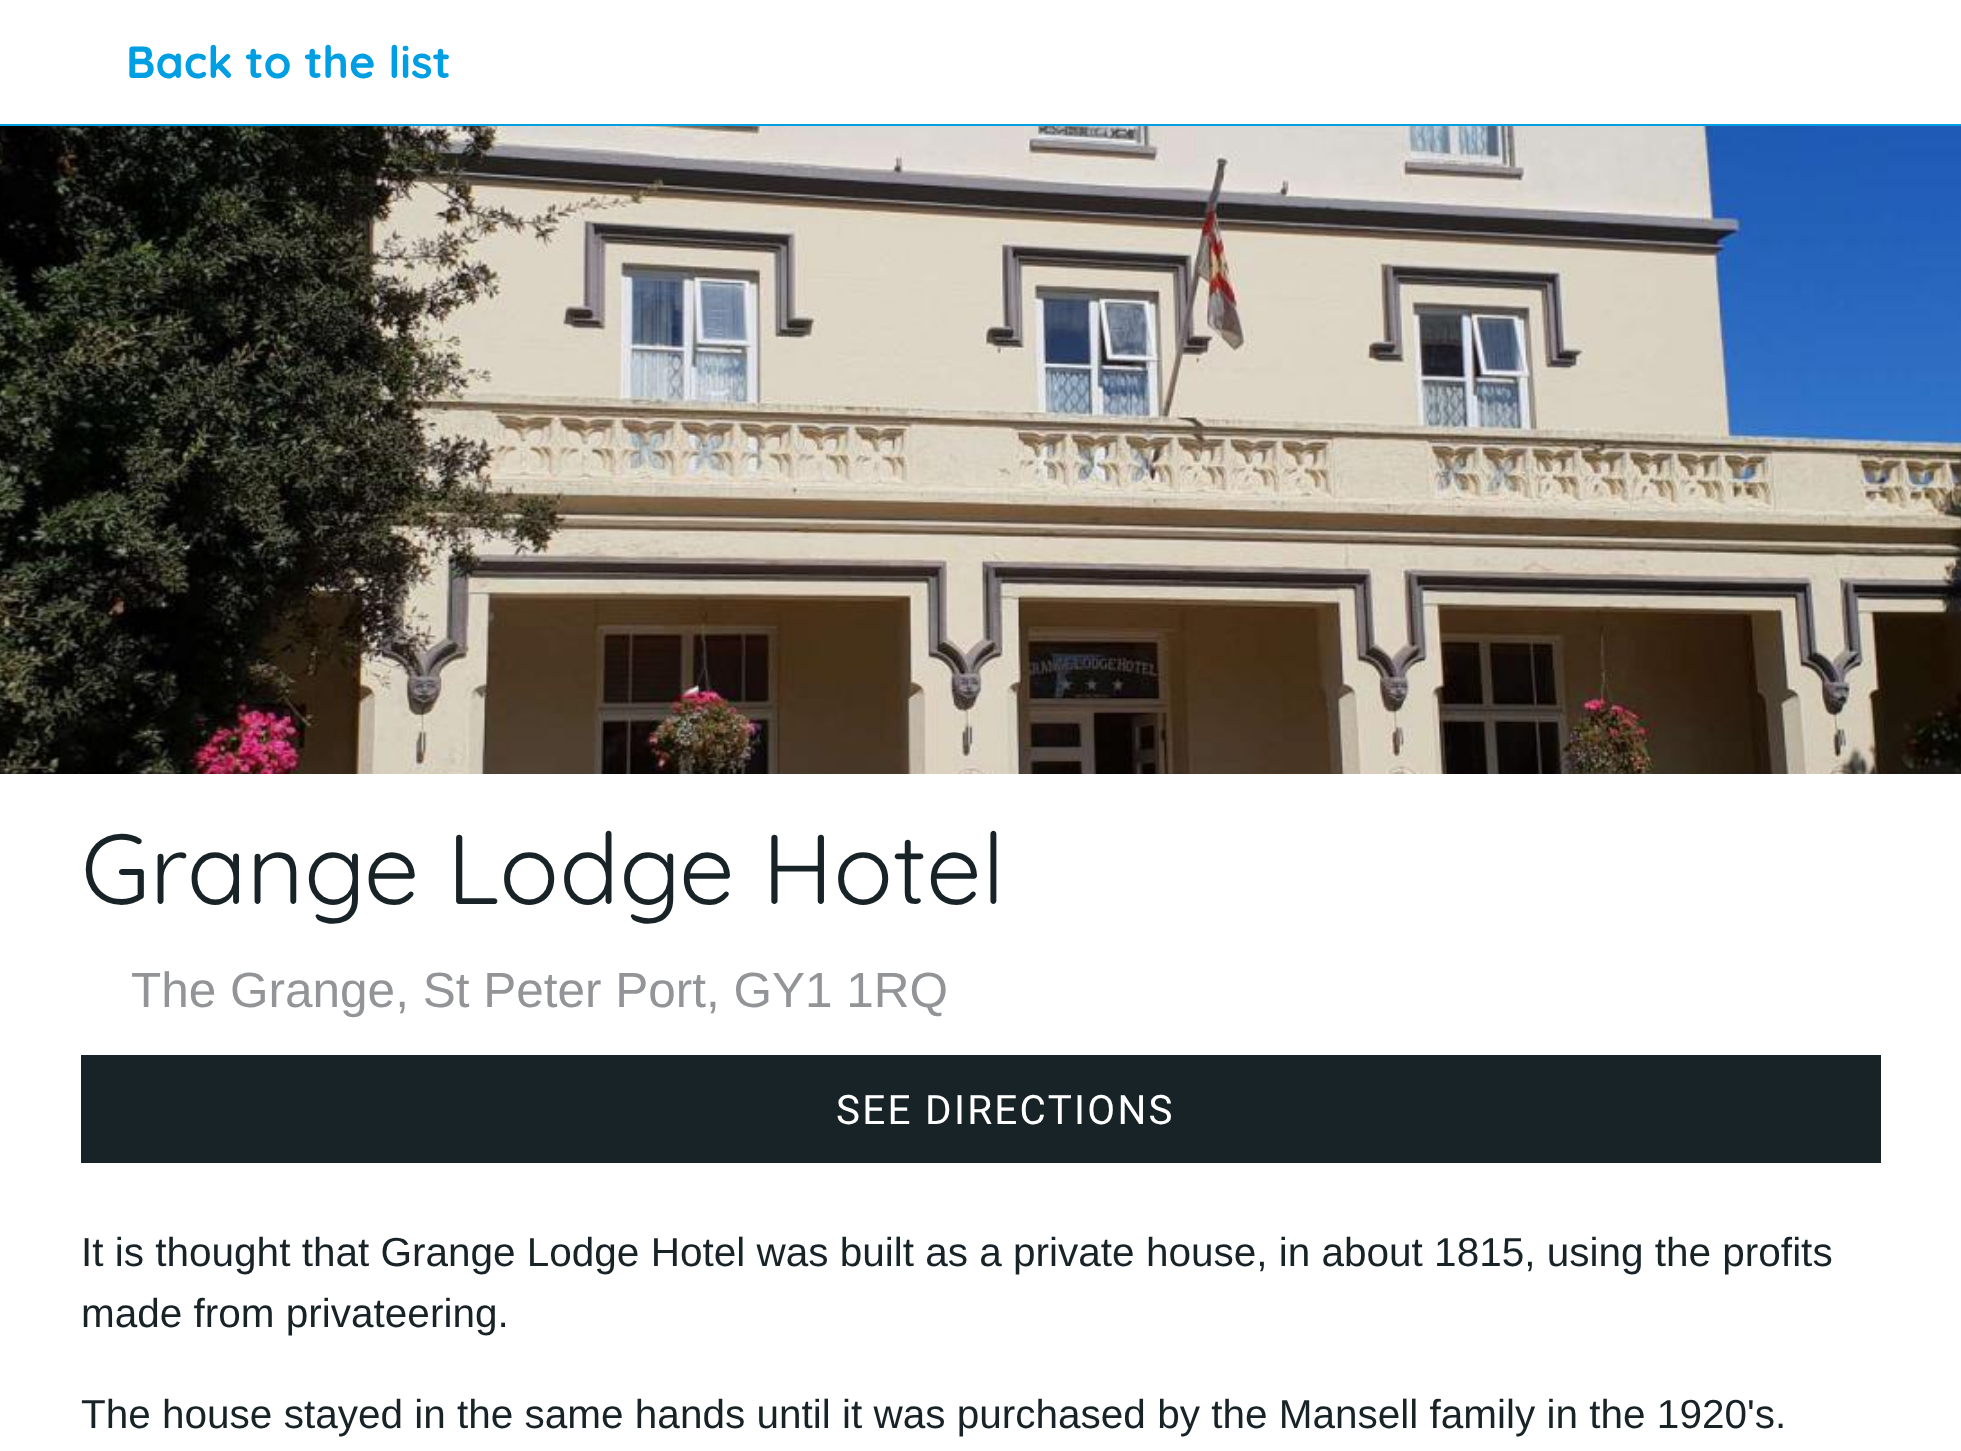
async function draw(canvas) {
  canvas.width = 1961;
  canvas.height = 1451;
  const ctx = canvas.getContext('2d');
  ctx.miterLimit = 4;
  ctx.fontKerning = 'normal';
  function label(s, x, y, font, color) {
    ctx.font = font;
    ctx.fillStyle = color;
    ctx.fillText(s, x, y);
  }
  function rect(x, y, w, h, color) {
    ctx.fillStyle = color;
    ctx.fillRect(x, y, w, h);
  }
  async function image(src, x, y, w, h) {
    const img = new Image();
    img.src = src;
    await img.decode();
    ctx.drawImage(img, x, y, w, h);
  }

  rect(0, 0, 1961, 1451, '#fff');
  rect(0, 124, 1961, 2, '#009ee2');
  label('Back to the list', 126, 78, 'bold 45px Quicksand', '#009ee2');
  await image('assets/img1.png', 0, 126, 1961, 648);
  label('Grange Lodge Hotel', 81, 904, '99px Quicksand', '#182327');
  label('The Grange, St Peter Port, GY1 1RQ', 131, 1007, '49.5px Liberation Sans', '#929497');
  rect(81, 1055, 1800, 108, '#182327');
  ctx.letterSpacing = '2.25px';
  label('SEE DIRECTIONS', 836, 1124, '40.5px Roboto', '#fff');
  ctx.letterSpacing = '0px';
  label('It is thought that Grange Lodge Hotel was built as a private house, in about 1815, using the profits', 81, 1266, '40.5px Liberation Sans', '#182327');
  label('made from privateering.', 81, 1327, '40.5px Liberation Sans', '#182327');
  label('The house stayed in the same hands until it was purchased by the Mansell family in the 1920\'s.', 81, 1428, '40.5px Liberation Sans', '#182327');
}

draw(document.querySelector('canvas'));
